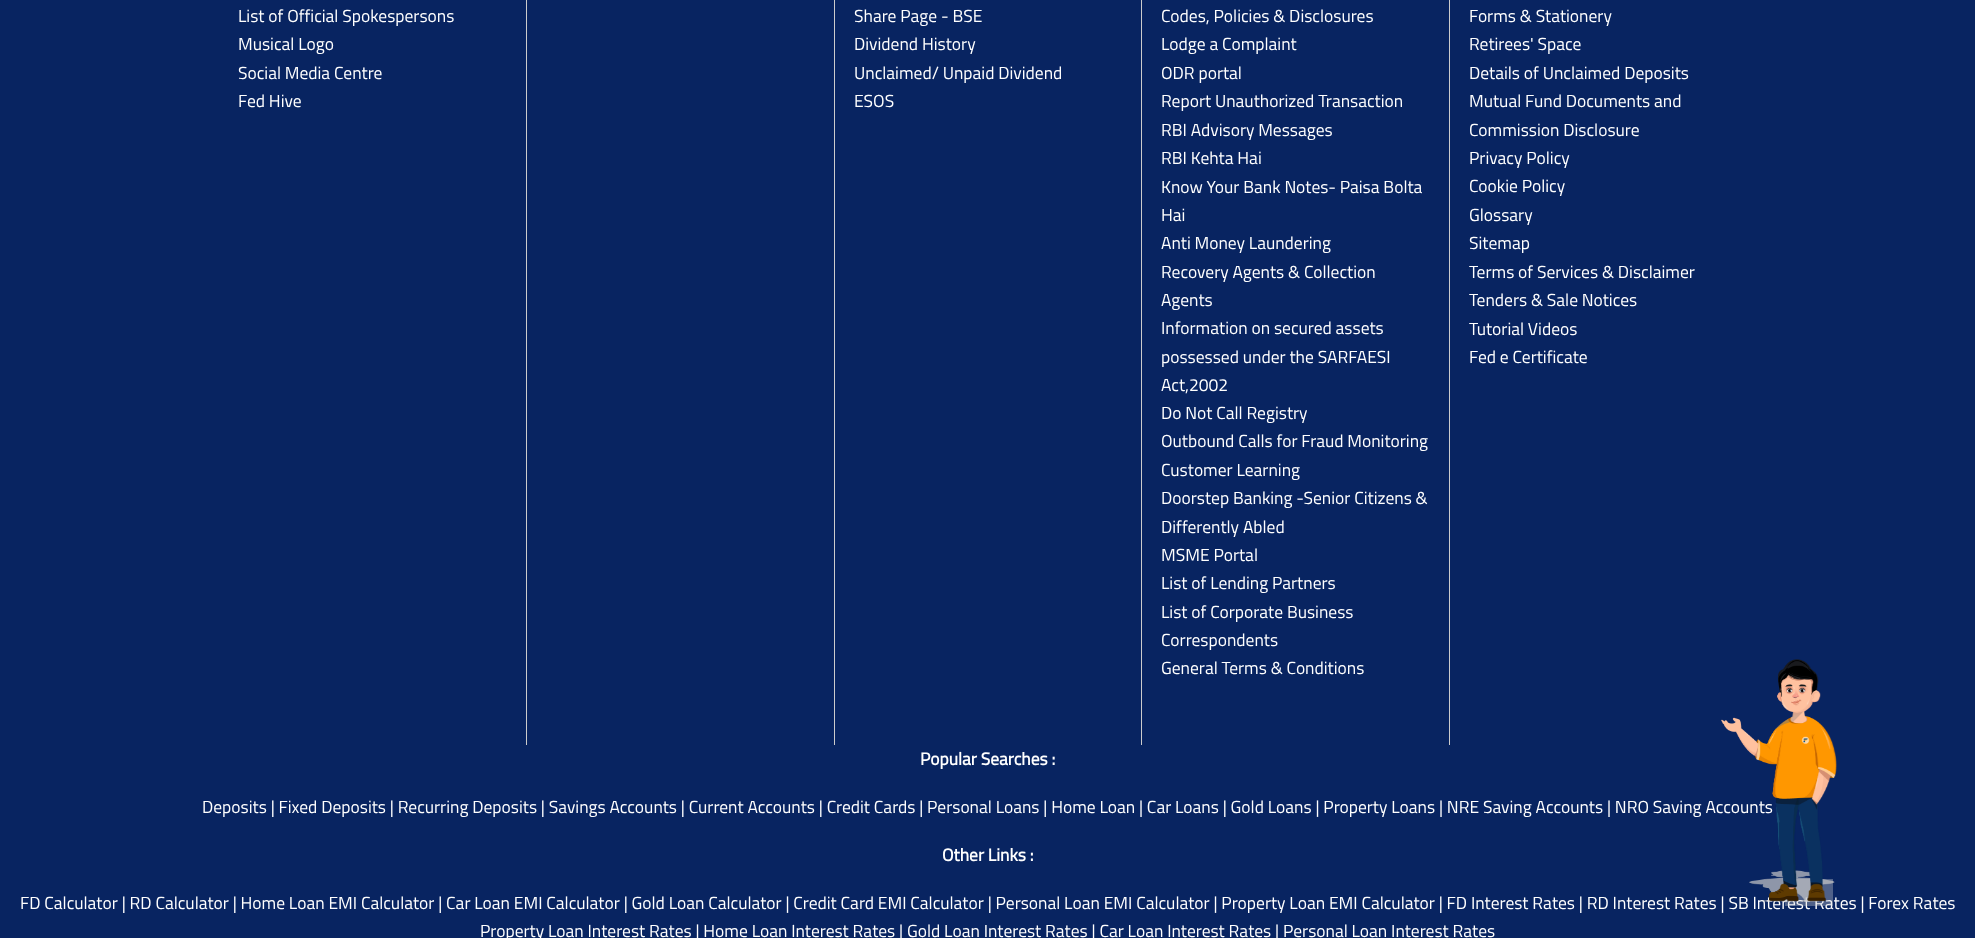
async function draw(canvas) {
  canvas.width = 1975;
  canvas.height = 938;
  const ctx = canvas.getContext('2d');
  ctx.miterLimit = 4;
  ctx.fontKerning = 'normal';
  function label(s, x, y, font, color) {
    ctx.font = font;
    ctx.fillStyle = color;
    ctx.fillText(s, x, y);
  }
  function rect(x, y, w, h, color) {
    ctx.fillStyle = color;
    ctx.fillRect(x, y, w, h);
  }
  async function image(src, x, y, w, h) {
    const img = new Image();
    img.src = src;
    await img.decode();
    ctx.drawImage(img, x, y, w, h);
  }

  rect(0, 0, 1975, 938, '#082461');
  label('List of Official Spokespersons', 238, 22, '17.5px Titillium Web', '#fff');
  label('Musical Logo', 238, 50, '17.5px Titillium Web', '#fff');
  label('Social Media Centre', 238, 79, '17.5px Titillium Web', '#fff');
  label('Fed Hive', 238, 107, '17.5px Titillium Web', '#fff');
  rect(526, 0, 1, 745, '#ccc');
  rect(834, 0, 1, 745, '#ccc');
  label('Share Page - BSE', 854, 22, '17.5px Titillium Web', '#fff');
  label('Dividend History', 854, 50, '17.5px Titillium Web', '#fff');
  label('Unclaimed/ Unpaid Dividend', 854, 79, '17.5px Titillium Web', '#fff');
  label('ESOS', 854, 107, '17.5px Titillium Web', '#fff');
  rect(1141, 0, 1, 745, '#ccc');
  label('Codes, Policies & Disclosures', 1161, 22, '17.5px Titillium Web', '#fff');
  label('Lodge a Complaint', 1161, 50, '17.5px Titillium Web', '#fff');
  label('ODR portal', 1161, 79, '17.5px Titillium Web', '#fff');
  label('Report Unauthorized Transaction', 1161, 107, '17.5px Titillium Web', '#fff');
  label('RBI Advisory Messages', 1161, 136, '17.5px Titillium Web', '#fff');
  label('RBI Kehta Hai', 1161, 164, '17.5px Titillium Web', '#fff');
  label('Know Your Bank Notes- Paisa Bolta', 1161, 193, '17.5px Titillium Web', '#fff');
  label('Hai', 1161, 221, '17.5px Titillium Web', '#fff');
  label('Anti Money Laundering', 1161, 249, '17.5px Titillium Web', '#fff');
  label('Recovery Agents & Collection', 1161, 278, '17.5px Titillium Web', '#fff');
  label('Agents', 1161, 306, '17.5px Titillium Web', '#fff');
  label('Information on secured assets', 1161, 334, '17.5px Titillium Web', '#fff');
  label('possessed under the SARFAESI', 1161, 363, '17.5px Titillium Web', '#fff');
  label('Act,2002', 1161, 391, '17.5px Titillium Web', '#fff');
  label('Do Not Call Registry', 1161, 419, '17.5px Titillium Web', '#fff');
  label('Outbound Calls for Fraud Monitoring', 1161, 447, '17.5px Titillium Web', '#fff');
  label('Customer Learning', 1161, 476, '17.5px Titillium Web', '#fff');
  label('Doorstep Banking -Senior Citizens &', 1161, 504, '17.5px Titillium Web', '#fff');
  label('Differently Abled', 1161, 533, '17.5px Titillium Web', '#fff');
  label('MSME Portal', 1161, 561, '17.5px Titillium Web', '#fff');
  label('List of Lending Partners', 1161, 589, '17.5px Titillium Web', '#fff');
  label('List of Corporate Business', 1161, 618, '17.5px Titillium Web', '#fff');
  label('Correspondents', 1161, 646, '17.5px Titillium Web', '#fff');
  label('General Terms & Conditions', 1161, 674, '17.5px Titillium Web', '#fff');
  rect(1449, 0, 1, 745, '#ccc');
  label('Forms & Stationery', 1469, 22, '17.5px Titillium Web', '#fff');
  label('Retirees\' Space', 1469, 50, '17.5px Titillium Web', '#fff');
  label('Details of Unclaimed Deposits', 1469, 79, '17.5px Titillium Web', '#fff');
  label('Mutual Fund Documents and', 1469, 107, '17.5px Titillium Web', '#fff');
  label('Commission Disclosure', 1469, 136, '17.5px Titillium Web', '#fff');
  label('Privacy Policy', 1469, 164, '17.5px Titillium Web', '#fff');
  label('Cookie Policy', 1469, 192, '17.5px Titillium Web', '#fff');
  label('Glossary', 1469, 221, '17.5px Titillium Web', '#fff');
  label('Sitemap', 1469, 249, '17.5px Titillium Web', '#fff');
  label('Terms of Services & Disclaimer', 1469, 278, '17.5px Titillium Web', '#fff');
  label('Tenders & Sale Notices', 1469, 306, '17.5px Titillium Web', '#fff');
  label('Tutorial Videos', 1469, 335, '17.5px Titillium Web', '#fff');
  label('Fed e Certificate', 1469, 363, '17.5px Titillium Web', '#fff');
  label('Popular Searches :', 920, 765, 'bold 17.5px Titillium Web', '#fff');
  label('Deposits | Fixed Deposits | Recurring Deposits | Savings Accounts | Current Accounts | Credit Cards | Personal Loans | Home Loan | Car Loans | Gold Loans | Property Loans | NRE Saving Accounts | NRO Saving Accounts', 202, 813, '17.5px Titillium Web', '#fff');
  label('Other Links :', 942, 861, 'bold 17.5px Titillium Web', '#fff');
  label('FD Calculator | RD Calculator | Home Loan EMI Calculator | Car Loan EMI Calculator | Gold Loan Calculator | Credit Card EMI Calculator | Personal Loan EMI Calculator | Property Loan EMI Calculator | FD Interest Rates | RD Interest Rates | SB Interest Rates | Forex Rates', 20, 909, '17.5px Titillium Web', '#fff');
  label('Property Loan Interest Rates | Home Loan Interest Rates | Gold Loan Interest Rates | Car Loan Interest Rates | Personal Loan Interest Rates', 480, 937, '17.5px Titillium Web', '#fff');
  rect(1785, 879, 48, 27, '#d4d4d459');
  await image('assets/img1.png', 1721, 659, 116, 243);
}

draw(document.querySelector('canvas'));
